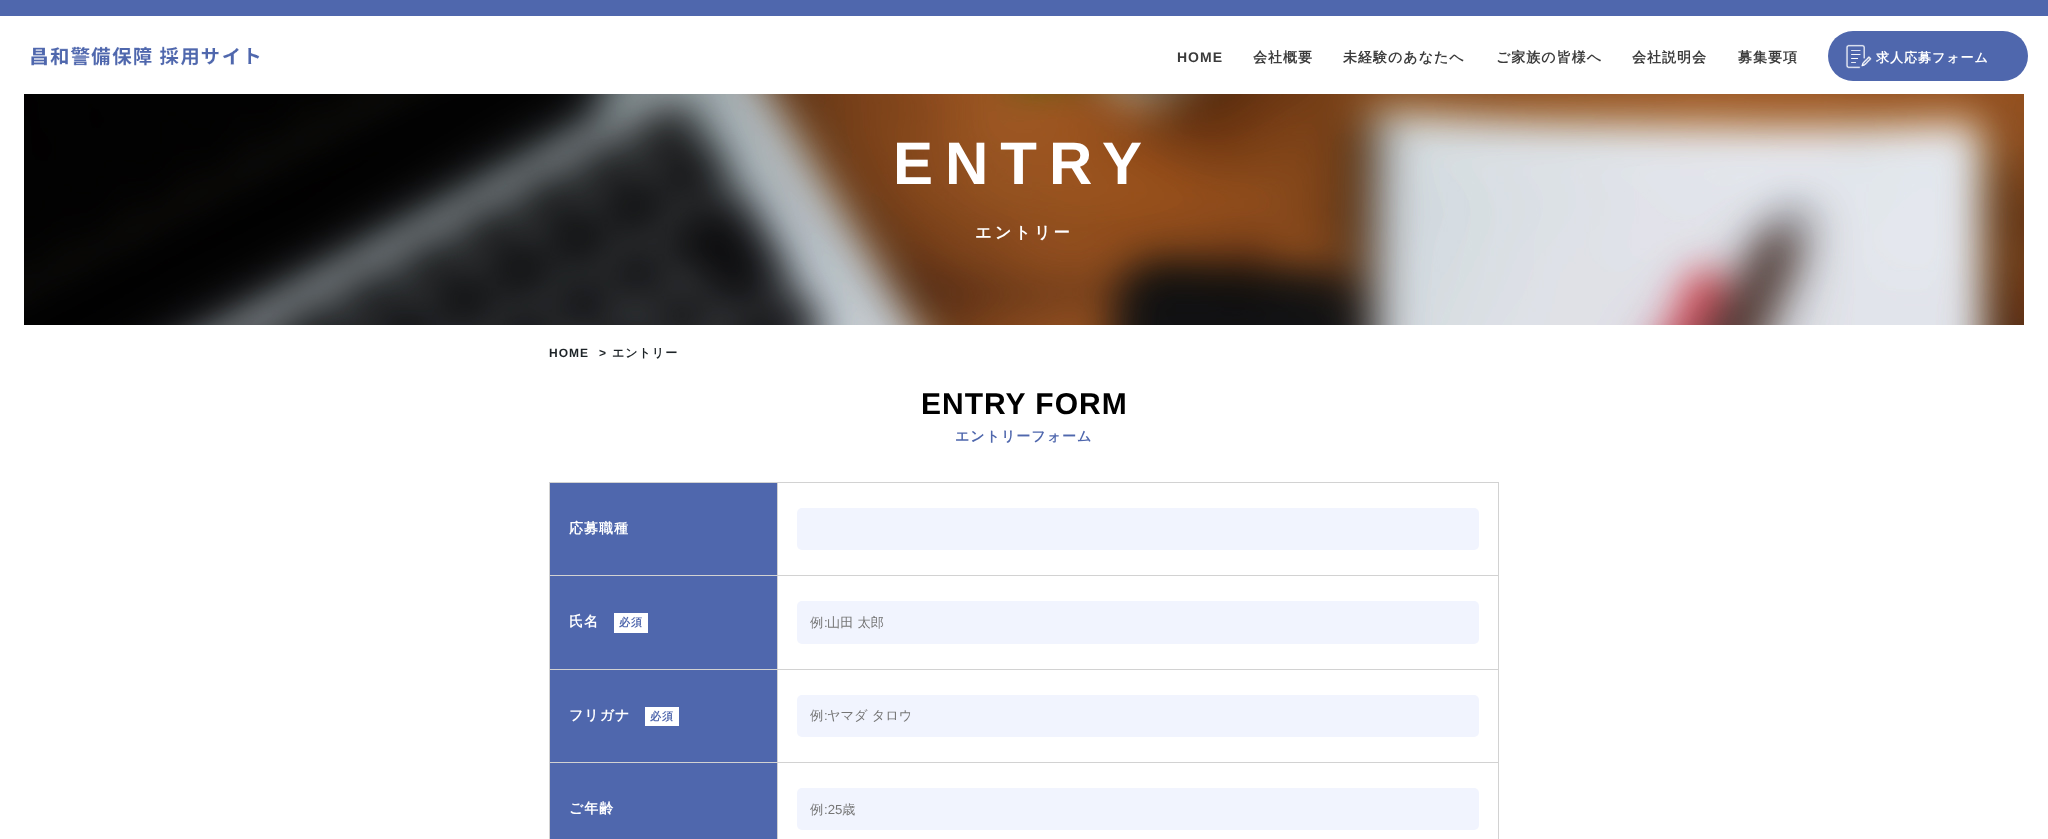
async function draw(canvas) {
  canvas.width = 2048;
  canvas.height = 839;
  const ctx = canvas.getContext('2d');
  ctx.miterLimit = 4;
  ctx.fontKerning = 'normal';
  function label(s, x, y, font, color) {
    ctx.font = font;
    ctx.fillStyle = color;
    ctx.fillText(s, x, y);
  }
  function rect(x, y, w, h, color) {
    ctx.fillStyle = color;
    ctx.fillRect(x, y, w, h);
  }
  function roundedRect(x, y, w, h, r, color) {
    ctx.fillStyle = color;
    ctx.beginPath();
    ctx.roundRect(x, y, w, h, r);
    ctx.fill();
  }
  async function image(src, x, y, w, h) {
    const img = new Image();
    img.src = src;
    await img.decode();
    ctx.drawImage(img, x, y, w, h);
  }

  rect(0, 0, 2048, 839, '#fff');
  rect(0, 0, 2048, 16, '#4f67ad');
  await image('assets/img1.png', 31, 46, 229, 20);
  ctx.letterSpacing = '1px';
  label('HOME', 1177, 62, 'bold 14px Liberation Sans', '#3b3b3b');
  label('会社概要', 1253, 62, 'bold 14px WenQuanYi Zen Hei', '#3b3b3b');
  label('未経験のあなたへ', 1343, 62, 'bold 14px WenQuanYi Zen Hei', '#3b3b3b');
  label('ご家族の皆様へ', 1496, 62, 'bold 14px WenQuanYi Zen Hei', '#3b3b3b');
  label('会社説明会', 1632, 62, 'bold 14px WenQuanYi Zen Hei', '#3b3b3b');
  label('募集要項', 1738, 62, 'bold 14px WenQuanYi Zen Hei', '#3b3b3b');
  roundedRect(1828, 31, 200, 50, 25, '#4f67ad');
  await image('assets/img2.png', 1845, 44, 27, 25);
  label('求人応募フォーム', 1876, 62, 'bold 13px WenQuanYi Zen Hei', '#fff');
  await image('assets/img3.png', 24, 94, 2000, 231);
  ctx.letterSpacing = '12px';
  label('ENTRY', 893, 184, 'bold 60px Liberation Sans', '#fff');
  ctx.letterSpacing = '3px';
  label('エントリー', 975, 238, 'bold 16.25px WenQuanYi Zen Hei', '#fff');
  ctx.letterSpacing = '1px';
  label('HOME', 549, 357, 'bold 12px Liberation Sans', '#1d2327');
  label('>', 599, 357, 'bold 12px Liberation Sans', '#1d2327');
  label('エントリー', 612, 357, 'bold 12px WenQuanYi Zen Hei', '#1d2327');
  label('ENTRY FORM', 921, 414, 'bold 30px Liberation Sans', '#000');
  label('エントリーフォーム', 955, 441, 'bold 14px WenQuanYi Zen Hei', '#4f67ad');
  rect(550, 483, 227, 92, '#4f67ad');
  rect(777, 482, 722, 1, '#d2d2d2');
  rect(777, 575, 722, 1, '#d2d2d2');
  rect(777, 669, 722, 1, '#d2d2d2');
  rect(777, 762, 722, 1, '#d2d2d2');
  rect(777, 762, 1, 77, '#d2d2d2');
  rect(549, 762, 229, 1, '#d2d2d2');
  rect(777, 669, 1, 94, '#d2d2d2');
  rect(549, 669, 229, 1, '#d2d2d2');
  rect(777, 575, 1, 95, '#d2d2d2');
  rect(549, 575, 229, 1, '#d2d2d2');
  rect(777, 482, 1, 94, '#d2d2d2');
  rect(549, 482, 229, 1, '#d2d2d2');
  rect(549, 762, 1, 77, '#d2d2d2');
  rect(549, 669, 1, 94, '#d2d2d2');
  rect(549, 575, 1, 95, '#d2d2d2');
  rect(549, 482, 1, 94, '#d2d2d2');
  label('応募職種', 569, 533, 'bold 14px WenQuanYi Zen Hei', '#fff');
  rect(1498, 762, 1, 77, '#d2d2d2');
  rect(1498, 669, 1, 94, '#d2d2d2');
  rect(1498, 575, 1, 95, '#d2d2d2');
  rect(1498, 482, 1, 94, '#d2d2d2');
  roundedRect(797, 508, 682, 42, 5, '#f1f4fe');
  rect(550, 576, 227, 93, '#4f67ad');
  label('氏名', 569, 626, 'bold 14px WenQuanYi Zen Hei', '#fff');
  rect(614, 613, 34, 20, '#fff');
  label('必須', 619, 626, 'bold 11px WenQuanYi Zen Hei', '#4f67ad');
  roundedRect(797, 601, 682, 43, 5, '#f1f4fe');
  ctx.letterSpacing = '0px';
  label('例', 810, 627, '500 13.25px WenQuanYi Zen Hei', '#757575');
  label(':', 824, 627, '13.25px Liberation Sans', '#757575');
  label('山田 太郎', 827, 627, '500 13.25px WenQuanYi Zen Hei', '#757575');
  rect(550, 670, 227, 92, '#4f67ad');
  ctx.letterSpacing = '1px';
  label('フリガナ', 569, 720, 'bold 14px WenQuanYi Zen Hei', '#fff');
  rect(645, 707, 34, 19, '#fff');
  label('必須', 650, 720, 'bold 11px WenQuanYi Zen Hei', '#4f67ad');
  roundedRect(797, 695, 682, 42, 5, '#f1f4fe');
  ctx.letterSpacing = '0px';
  label('例', 810, 720, '500 13.25px WenQuanYi Zen Hei', '#757575');
  label(':', 824, 720, '13.25px Liberation Sans', '#757575');
  label('ヤマダ タロウ', 827, 720, '500 13.25px WenQuanYi Zen Hei', '#757575');
  rect(550, 763, 227, 76, '#4f67ad');
  ctx.letterSpacing = '1px';
  label('ご年齢', 569, 813, 'bold 14px WenQuanYi Zen Hei', '#fff');
  roundedRect(797, 788, 682, 42, 5, '#f1f4fe');
  ctx.letterSpacing = '0px';
  label('例', 810, 814, '500 13.25px WenQuanYi Zen Hei', '#757575');
  label(':25', 824, 814, '13.25px Liberation Sans', '#757575');
  label('歳', 842, 814, '500 13.25px WenQuanYi Zen Hei', '#757575');
}

draw(document.querySelector('canvas'));
